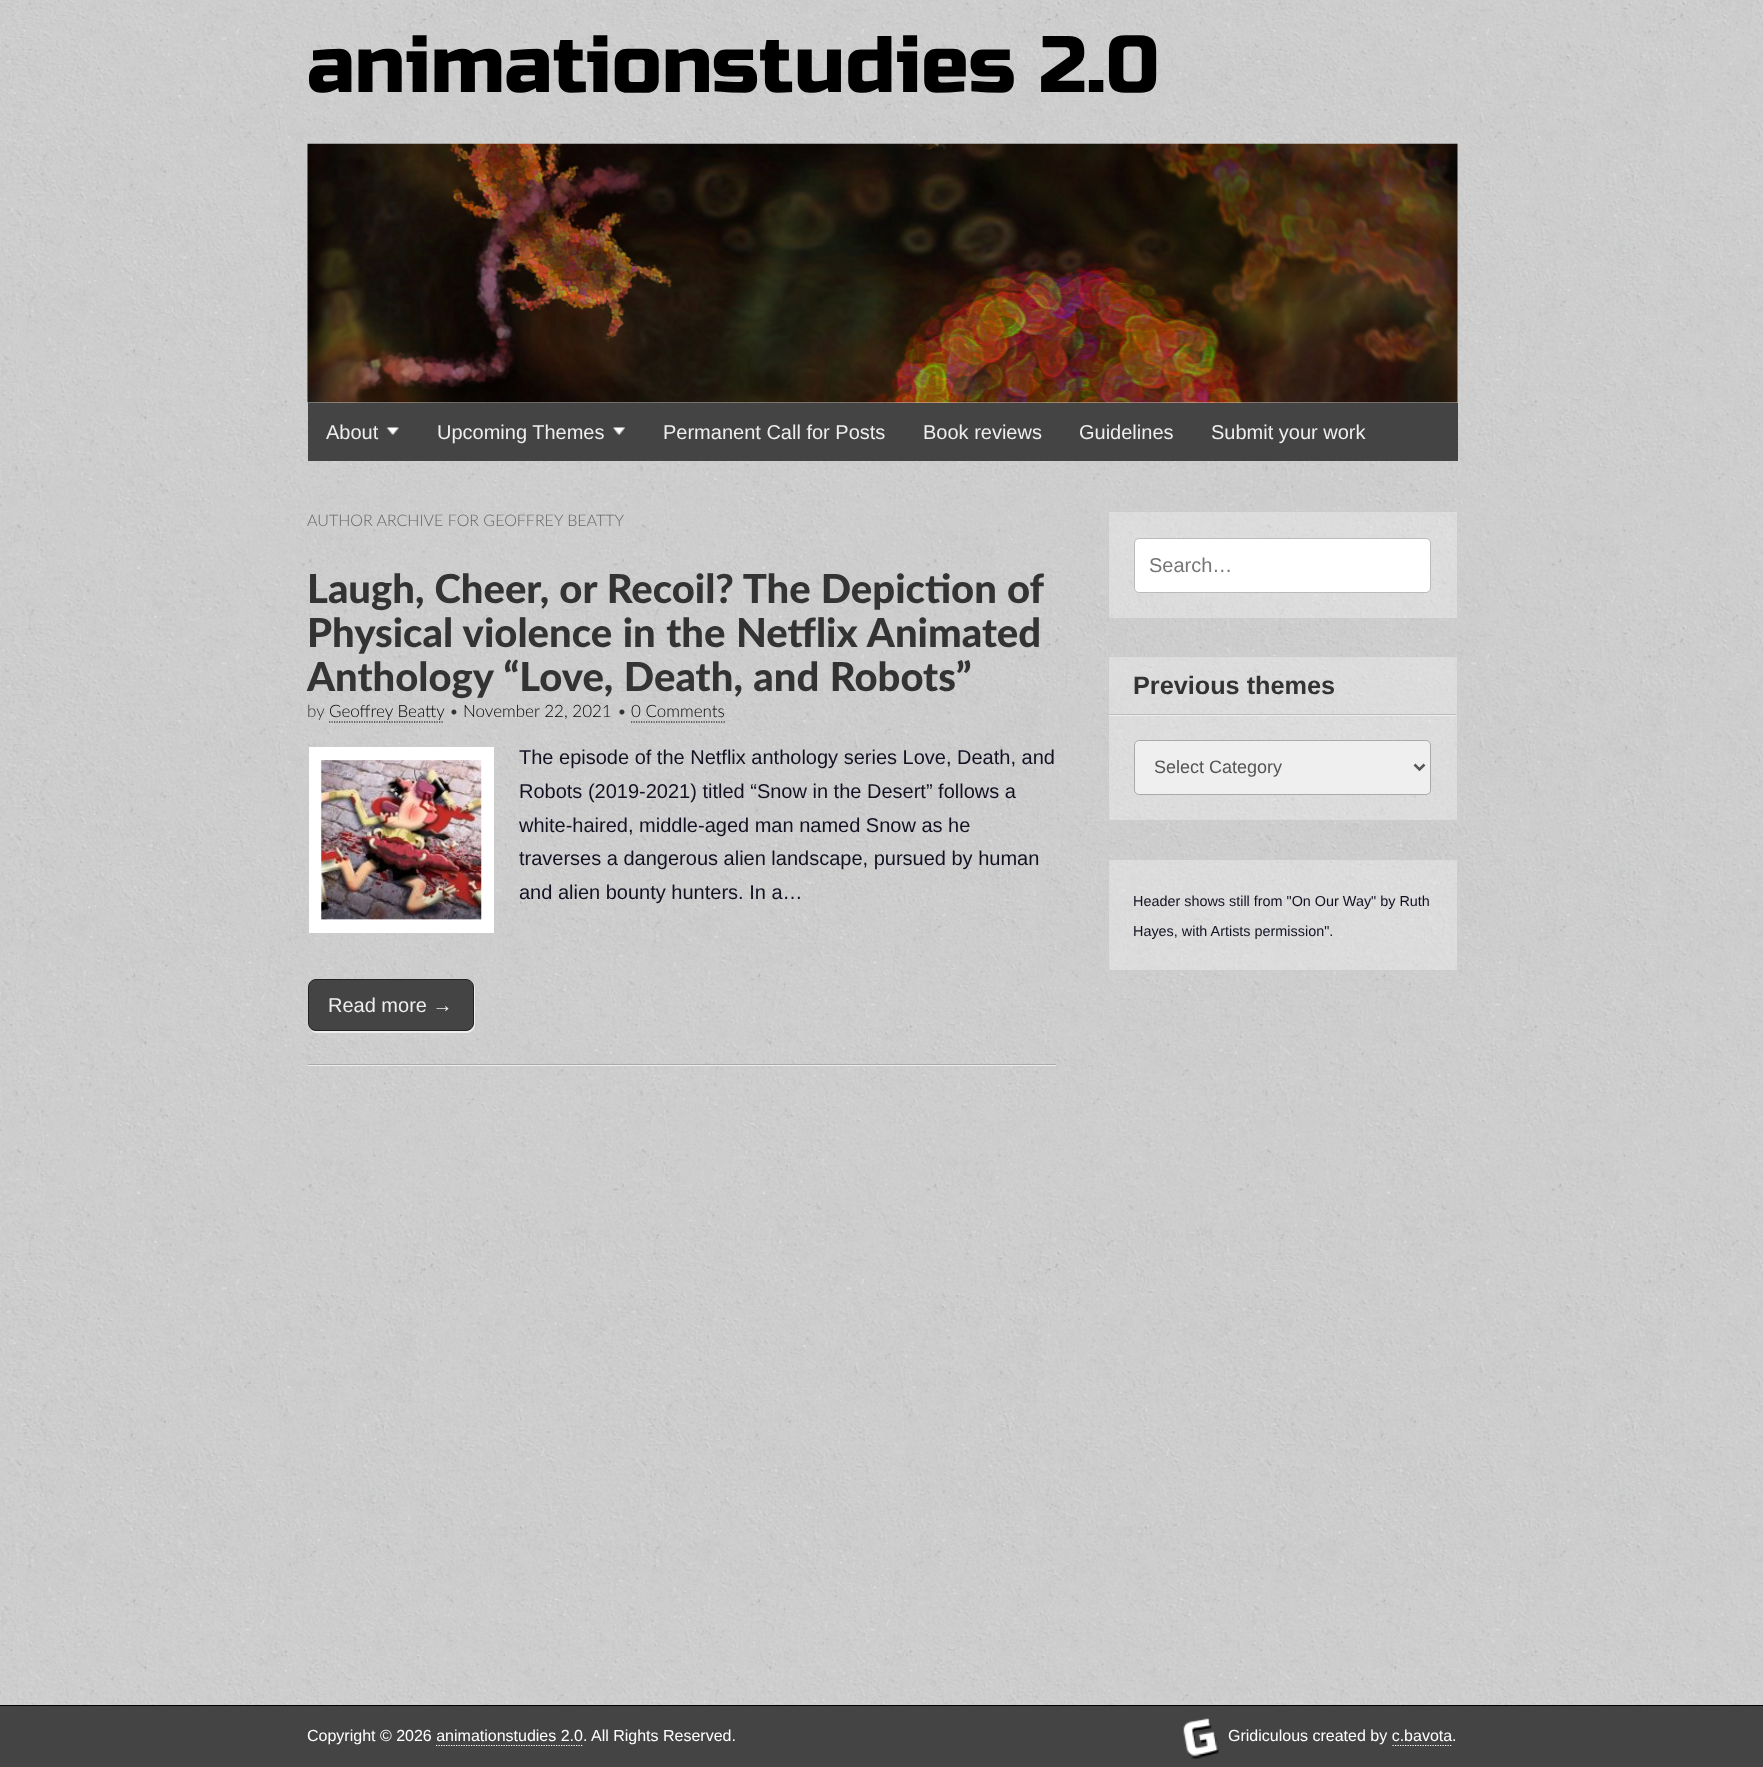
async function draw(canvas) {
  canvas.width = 1763;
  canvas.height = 1767;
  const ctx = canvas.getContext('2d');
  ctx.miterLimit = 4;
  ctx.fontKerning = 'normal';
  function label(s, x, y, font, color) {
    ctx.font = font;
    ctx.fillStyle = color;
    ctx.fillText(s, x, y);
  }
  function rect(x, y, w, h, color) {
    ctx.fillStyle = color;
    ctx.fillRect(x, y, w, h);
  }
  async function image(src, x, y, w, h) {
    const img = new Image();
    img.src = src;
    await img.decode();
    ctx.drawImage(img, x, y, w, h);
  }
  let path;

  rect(0, 0, 1763, 1767, '#fff');
  await image('assets/img1.png', 0, 0, 1763, 1705);
  label('animationstudies 2.0', 307, 92, '80px Russo One', '#000');
  await image('assets/img2.png', 307, 143, 1151, 260);
  rect(308, 403, 1150, 58, '#444');
  label('About', 326, 439, '20px Liberation Sans', '#eee');
  await image('assets/img3.png', 386, 427, 13, 8);
  label('Upcoming Themes', 437, 439, '20px Liberation Sans', '#eee');
  await image('assets/img4.png', 612, 427, 13, 8);
  label('Permanent Call for Posts', 663, 439, '20px Liberation Sans', '#eee');
  label('Book reviews', 923, 439, '20px Liberation Sans', '#eee');
  label('Guidelines', 1079, 439, '20px Liberation Sans', '#eee');
  label('Submit your work', 1211, 439, '20px Liberation Sans', '#eee');
  label('AUTHOR ARCHIVE FOR GEOFFREY BEATTY', 307, 526, '300 16px Lato', '#666');
  rect(308, 1065, 748, 1, '#eee');
  rect(308, 1064, 748, 1, '#aaa');
  ctx.wordSpacing = '0.5px';
  label('Laugh, Cheer, or Recoil? The Depiction of', 307, 603, '900 40px Lato', '#333');
  ctx.wordSpacing = '1px';
  label('Physical violence in the Netflix Animated', 307, 647, '900 40px Lato', '#333');
  label('Anthology “Love, Death, and Robots”', 307, 691, '900 40px Lato', '#333');
  ctx.wordSpacing = '0px';
  label('by', 307, 717, '300 17px Lato', '#333');
  label('Geoffrey Beatty', 329, 717, '300 17px Lato', '#000');
  path = new Path2D('M329 722H444');
  ctx.strokeStyle = '#000';
  ctx.lineWidth = 1.2;
  ctx.setLineDash([1.25, 1.25]);
  ctx.stroke(path);
  label('•', 449, 717, '300 17px Lato', '#333');
  label('November 22, 2021', 463, 717, '300 17px Lato', '#000');
  label('•', 617, 717, '300 17px Lato', '#333');
  label('0 Comments', 631, 717, '300 17px Lato', '#000');
  path = new Path2D('M631 722H725');
  ctx.stroke(path);
  ctx.fillStyle = '#fff';
  ctx.beginPath();
  ctx.rect(308.5, 746.5, 186, 187);
  ctx.fill();
  ctx.strokeStyle = '#ccc';
  ctx.lineWidth = 1;
  ctx.setLineDash([]);
  ctx.stroke();
  await image('assets/img5.png', 321, 760, 161, 160);
  label('The episode of the Netflix anthology series Love, Death, and', 519, 764, '20px Liberation Sans', '#112');
  label('Robots (2019-2021) titled “Snow in the Desert” follows a', 519, 798, '20px Liberation Sans', '#112');
  label('white-haired, middle-aged man named Snow as he', 519, 832, '20px Liberation Sans', '#112');
  label('traverses a dangerous alien landscape, pursued by human', 519, 865, '20px Liberation Sans', '#112');
  label('and alien bounty hunters. In a…', 519, 899, '20px Liberation Sans', '#112');
  ctx.fillStyle = '#eee';
  path = new Path2D('M311 1030C312 1032 314 1033 317 1033H467C471 1033 475 1029 475 1025V988C475 986 474 984 473 982C473 983 474 985 474 986V1024C474 1028 470 1031 466 1031H315C313 1031 312 1031 311 1030Z');
  ctx.fill(path);
  ctx.fillStyle = '#444';
  ctx.beginPath();
  ctx.roundRect(308.5, 979.5, 165, 51, 7.5);
  ctx.fill();
  ctx.strokeStyle = '#222';
  ctx.stroke();
  label('Read more →', 328, 1012, '20px Liberation Sans', '#eee');
  ctx.fillStyle = '#ffffff4d';
  ctx.beginPath();
  ctx.rect(1108.5, 511.5, 349, 107);
  ctx.fill();
  ctx.strokeStyle = '#ccc';
  ctx.stroke();
  ctx.fillStyle = '#fff';
  ctx.beginPath();
  ctx.roundRect(1134.5, 538.5, 296, 54, 4.5);
  ctx.fill();
  ctx.strokeStyle = '#bbb';
  ctx.stroke();
  label('Search…', 1149, 572, '20px Liberation Sans', '#757575');
  ctx.fillStyle = '#ffffff4d';
  ctx.beginPath();
  ctx.rect(1108.5, 656.5, 349, 164);
  ctx.fill();
  ctx.strokeStyle = '#ccc';
  ctx.stroke();
  rect(1109, 715, 347, 1, '#eee');
  rect(1109, 714, 347, 1, '#bbb');
  label('Previous themes', 1133, 694, 'bold 25.25px Liberation Sans', '#333');
  ctx.fillStyle = '#efefef';
  ctx.beginPath();
  ctx.roundRect(1134.5, 740.5, 296, 54, 4.5);
  ctx.fill();
  ctx.strokeStyle = '#aaa';
  ctx.stroke();
  path = new Path2D('M1414.5 764.5L1419.5 769.5L1424.5 764.5');
  ctx.strokeStyle = '#555';
  ctx.lineWidth = 2.5;
  ctx.stroke(path);
  label('Select Category', 1154, 773, '18px Liberation Sans', '#555');
  ctx.fillStyle = '#ffffff4d';
  ctx.beginPath();
  ctx.rect(1108.5, 859.5, 349, 111);
  ctx.fill();
  ctx.strokeStyle = '#ccc';
  ctx.lineWidth = 1;
  ctx.stroke();
  label('Header shows still from "On Our Way" by Ruth', 1133, 906, '14.4px Liberation Sans', '#112');
  label('Hayes, with Artists permission".', 1133, 936, '14.4px Liberation Sans', '#112');
  rect(0, 1706, 1763, 61, '#444');
  rect(0, 1705, 1763, 1, '#000');
  label('Copyright © 2026 animationstudies 2.0. All Rights Reserved.', 307, 1741, '16px Liberation Sans', '#fff');
  path = new Path2D('M436 1745.5H582.5');
  ctx.strokeStyle = '#fff';
  ctx.lineWidth = 1.2;
  ctx.setLineDash([1.25, 1.25]);
  ctx.stroke(path);
  await image('assets/img6.png', 1183, 1718, 36, 41);
  label('Gridiculous created by c.bavota.', 1228, 1741, '16px Liberation Sans', '#fff');
  path = new Path2D('M1392.5 1745.5H1452.5');
  ctx.stroke(path);
}

draw(document.querySelector('canvas'));
